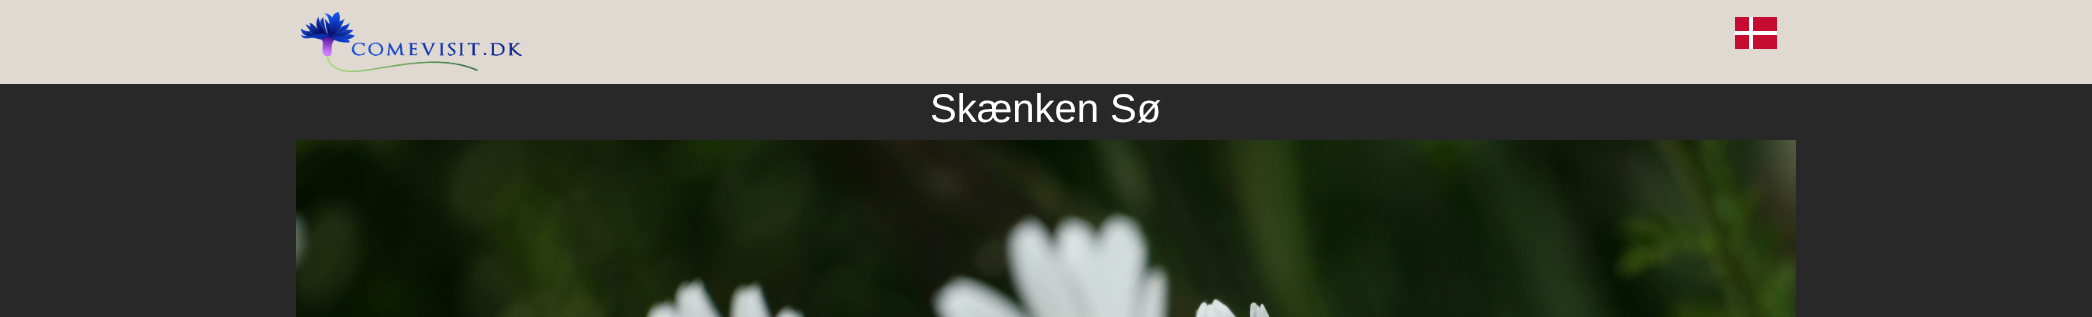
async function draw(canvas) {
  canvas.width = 2092;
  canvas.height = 317;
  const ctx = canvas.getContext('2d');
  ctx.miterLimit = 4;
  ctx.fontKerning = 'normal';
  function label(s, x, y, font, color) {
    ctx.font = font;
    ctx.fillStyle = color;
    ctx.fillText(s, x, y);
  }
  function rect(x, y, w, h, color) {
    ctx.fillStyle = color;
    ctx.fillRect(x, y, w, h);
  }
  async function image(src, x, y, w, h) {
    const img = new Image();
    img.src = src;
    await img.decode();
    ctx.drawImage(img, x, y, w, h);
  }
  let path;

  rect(0, 0, 2092, 317, '#282828');
  rect(0, 0, 2092, 84, '#e0d9d1');
  await image('assets/img1.png', 301, 12, 221, 60);
  rect(1735, 17, 42, 32, '#c60c30');
  ctx.fillStyle = '#fff';
  path = new Path2D('M1735 31H1749V17H1753V31H1777V35H1753V49H1749V35H1735Z');
  ctx.fill(path);
  label('Skænken Sø', 930, 122, '40px Liberation Sans', '#fff');
  await image('assets/img2.png', 296, 140, 1500, 177);
}

draw(document.querySelector('canvas'));
